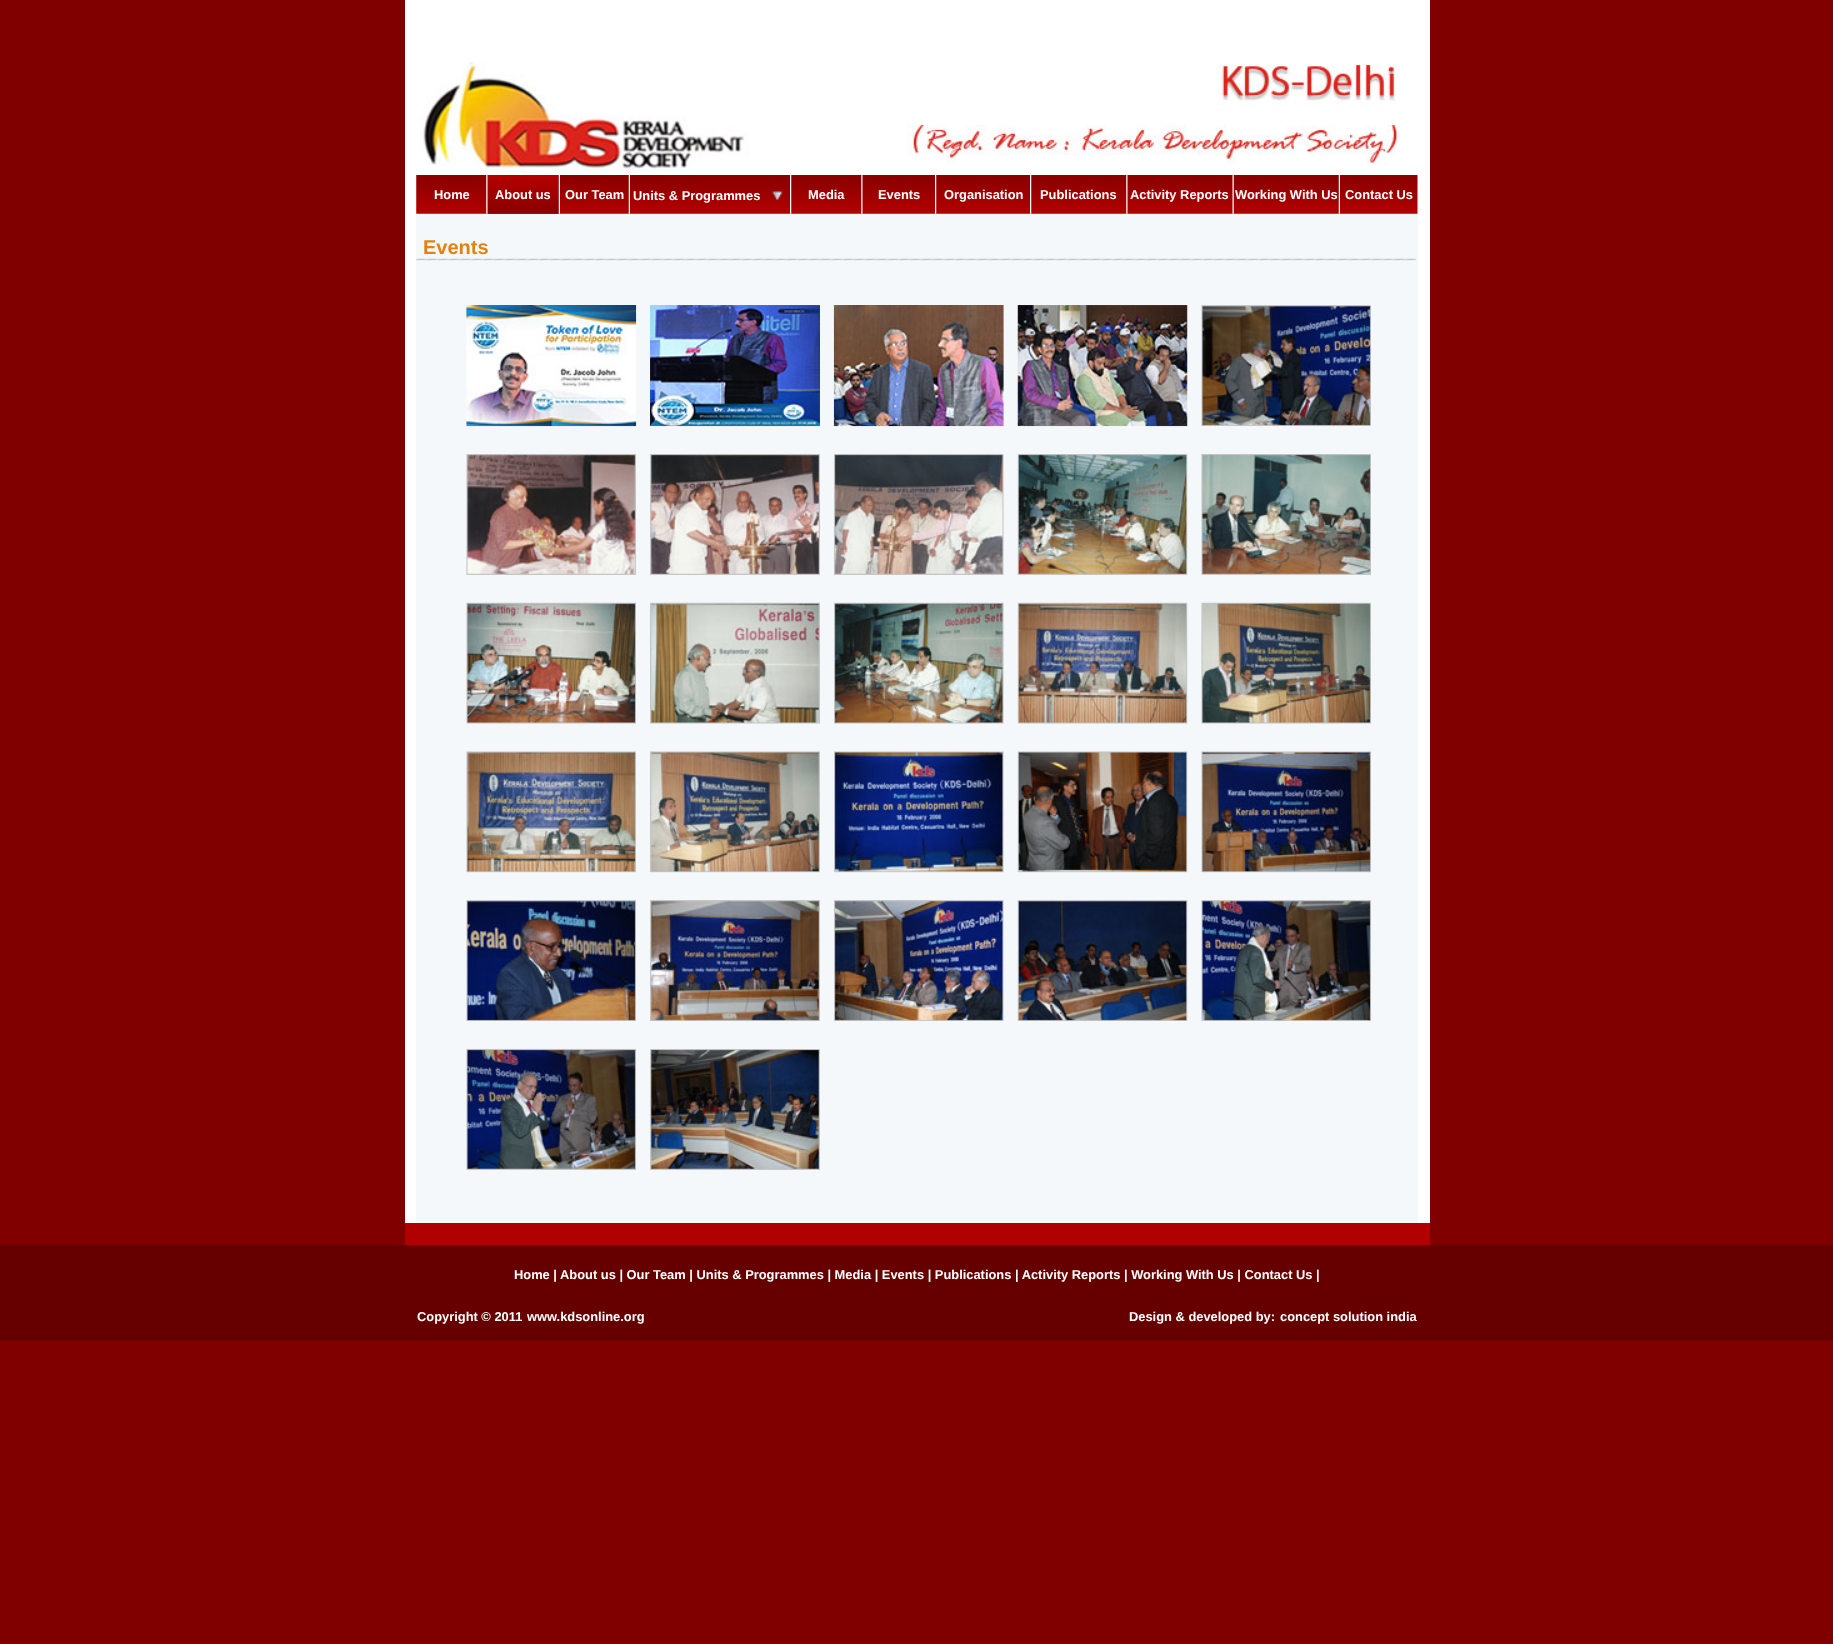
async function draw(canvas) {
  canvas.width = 1833;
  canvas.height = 1644;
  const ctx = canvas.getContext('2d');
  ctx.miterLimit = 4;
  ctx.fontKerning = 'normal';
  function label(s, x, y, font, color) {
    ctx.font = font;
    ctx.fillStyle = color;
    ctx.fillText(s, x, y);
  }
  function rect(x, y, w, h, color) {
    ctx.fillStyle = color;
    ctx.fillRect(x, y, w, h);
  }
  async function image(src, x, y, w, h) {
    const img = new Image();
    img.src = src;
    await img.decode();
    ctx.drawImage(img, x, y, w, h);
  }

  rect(0, 0, 1833, 1644, '#800000');
  rect(405, 0, 1025, 1223, '#fff');
  await image('assets/img1.png', 420, 61, 979, 114);
  await image('assets/img2.png', 416, 175, 1002, 39);
  label('Home', 434, 199, 'bold 12.88px Liberation Sans', '#fff');
  await image('assets/img4.png', 487, 175, 72, 39);
  await image('assets/img3.png', 486, 175, 2, 39);
  label('About us', 495, 199, 'bold 12.88px Liberation Sans', '#fff');
  await image('assets/img5.png', 558, 175, 2, 39);
  label('Our Team', 565, 199, 'bold 12.88px Liberation Sans', '#fff');
  await image('assets/img6.png', 628, 175, 2, 39);
  label('Units & Programmes', 633, 200, 'bold 12.88px Liberation Sans', '#fff');
  await image('assets/img7.png', 772, 191, 11, 9);
  await image('assets/img8.png', 790, 175, 2, 39);
  label('Media', 808, 199, 'bold 12.88px Liberation Sans', '#fff');
  await image('assets/img9.png', 861, 175, 2, 39);
  label('Events', 878, 199, 'bold 12.88px Liberation Sans', '#fff');
  await image('assets/img8.png', 935, 175, 2, 39);
  label('Organisation', 944, 199, 'bold 12.88px Liberation Sans', '#fff');
  await image('assets/img8.png', 1030, 175, 2, 39);
  label('Publications', 1040, 199, 'bold 12.88px Liberation Sans', '#fff');
  await image('assets/img9.png', 1126, 175, 2, 39);
  label('Activity Reports', 1130, 199, 'bold 12.88px Liberation Sans', '#fff');
  await image('assets/img10.png', 1232, 175, 2, 39);
  label('Working With Us', 1235, 199, 'bold 12.88px Liberation Sans', '#fff');
  await image('assets/img6.png', 1338, 175, 2, 39);
  label('Contact Us', 1345, 199, 'bold 12.88px Liberation Sans', '#fff');
  rect(416, 214, 1002, 1009, '#f5f8fb');
  label('Events', 423, 254, 'bold 20px Liberation Sans', '#df8311');
  await image('assets/img11.png', 416, 258, 1001, 3);
  await image('assets/img12.png', 466, 305, 171, 122);
  await image('assets/img13.png', 650, 305, 170, 122);
  await image('assets/img14.png', 833, 305, 171, 122);
  await image('assets/img15.png', 1017, 305, 171, 122);
  await image('assets/img16.png', 1201, 305, 170, 121);
  await image('assets/img17.png', 466, 454, 170, 121);
  await image('assets/img18.png', 650, 454, 170, 121);
  await image('assets/img19.png', 833, 454, 171, 121);
  await image('assets/img20.png', 1017, 454, 171, 121);
  await image('assets/img21.png', 1201, 454, 170, 121);
  await image('assets/img22.png', 466, 602, 170, 122);
  await image('assets/img23.png', 650, 602, 170, 122);
  await image('assets/img24.png', 834, 602, 170, 122);
  await image('assets/img25.png', 1017, 602, 171, 122);
  await image('assets/img26.png', 1201, 602, 170, 122);
  await image('assets/img27.png', 466, 751, 170, 122);
  await image('assets/img28.png', 650, 751, 170, 122);
  await image('assets/img29.png', 834, 751, 170, 122);
  await image('assets/img30.png', 1017, 751, 171, 122);
  await image('assets/img31.png', 1201, 751, 170, 122);
  await image('assets/img32.png', 466, 900, 170, 121);
  await image('assets/img33.png', 650, 900, 170, 121);
  await image('assets/img34.png', 834, 900, 170, 121);
  await image('assets/img35.png', 1017, 900, 171, 121);
  await image('assets/img36.png', 1201, 900, 170, 121);
  await image('assets/img37.png', 466, 1048, 171, 122);
  await image('assets/img38.png', 650, 1049, 170, 121);
  rect(405, 1223, 1025, 22, '#b00002');
  rect(0, 1245, 1833, 96, '#600');
  label('Home | About us | Our Team | Units & Programmes | Media | Events | Publications | Activity Reports | Working With Us | Contact Us |', 514, 1279, 'bold 12.88px Liberation Sans', '#fff');
  label('Copyright © 2011', 417, 1321, 'bold 12.88px Liberation Sans', '#fff');
  label('www.kdsonline.org', 527, 1321, 'bold 12.88px Liberation Sans', '#fff');
  label('Design & developed by:', 1129, 1321, 'bold 12.88px Liberation Sans', '#fff');
  label('concept solution india', 1280, 1321, 'bold 12.88px Liberation Sans', '#fff');
}

draw(document.querySelector('canvas'));
